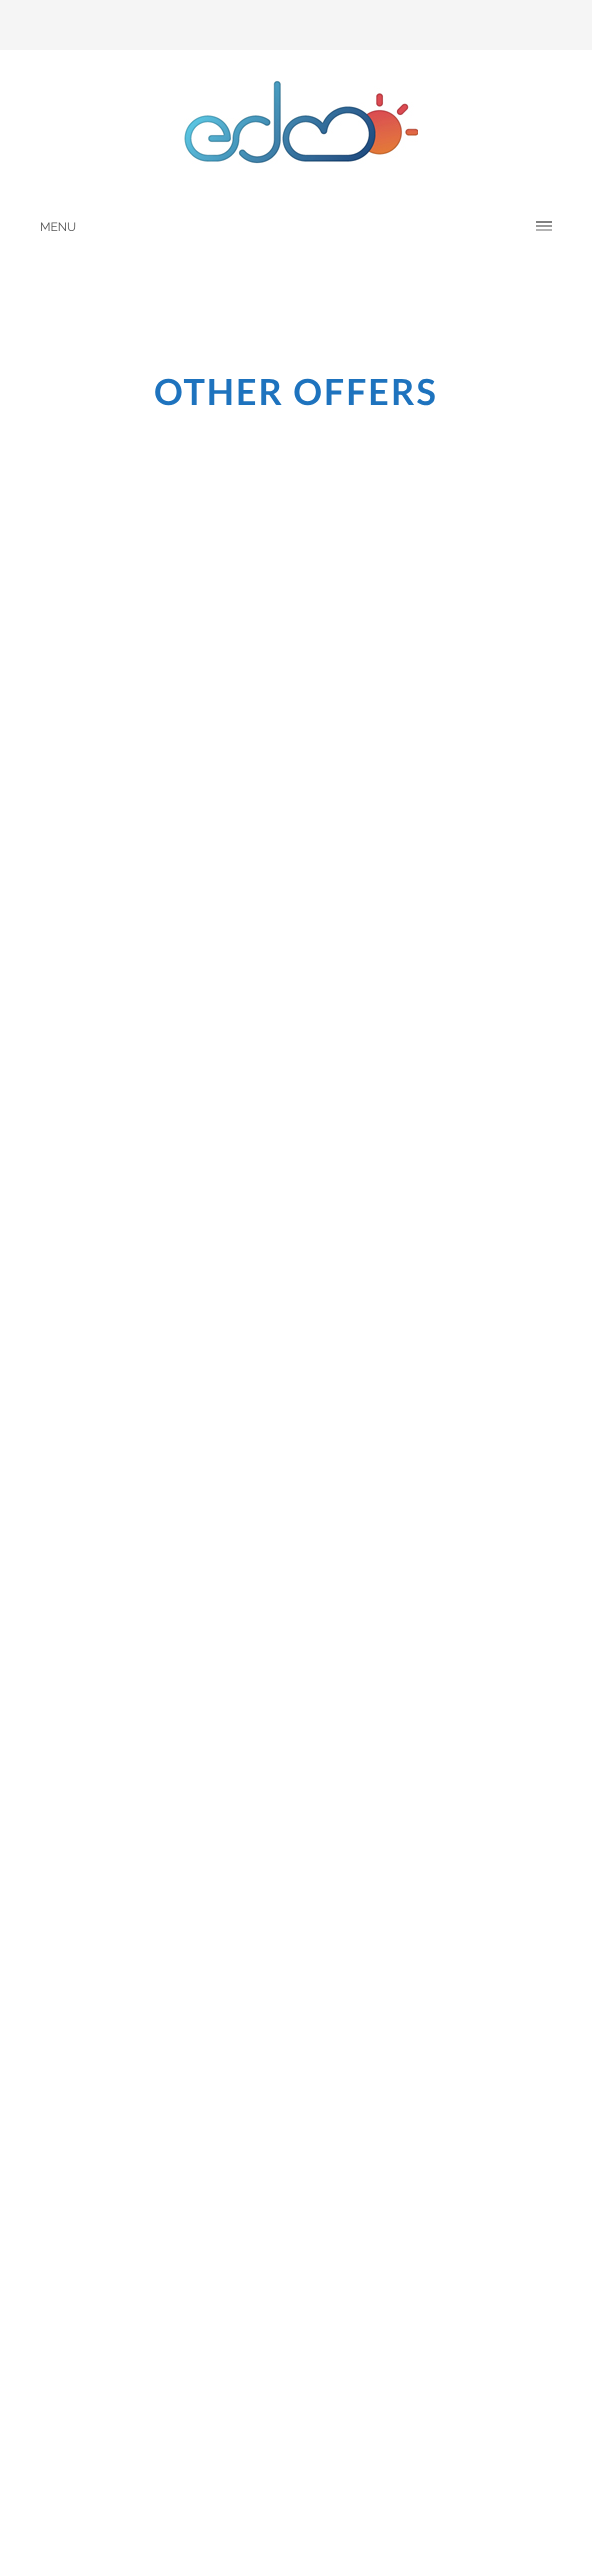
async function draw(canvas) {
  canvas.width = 592;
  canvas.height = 2552;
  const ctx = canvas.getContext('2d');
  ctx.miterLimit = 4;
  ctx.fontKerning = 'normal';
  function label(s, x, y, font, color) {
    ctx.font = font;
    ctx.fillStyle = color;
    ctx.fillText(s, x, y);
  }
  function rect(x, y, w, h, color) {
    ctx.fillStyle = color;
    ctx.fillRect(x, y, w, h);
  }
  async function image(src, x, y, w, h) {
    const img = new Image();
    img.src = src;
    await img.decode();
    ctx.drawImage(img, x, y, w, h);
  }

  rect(0, 0, 592, 2552, '#fff');
  rect(0, 0, 592, 50, '#f5f5f5');
  await image('assets/img1.png', 184, 80, 234, 84);
  label('MENU', 40, 231, '12px Raleway', '#555');
  rect(536, 229, 16, 2, '#b3b3b3');
  rect(536, 221, 16, 2, '#808080');
  rect(536, 225, 16, 2, '#999');
  ctx.letterSpacing = '2px';
  label('OTHER OFFERS', 154, 405, 'bold 36px Lato', '#1e73be');
}

draw(document.querySelector('canvas'));
